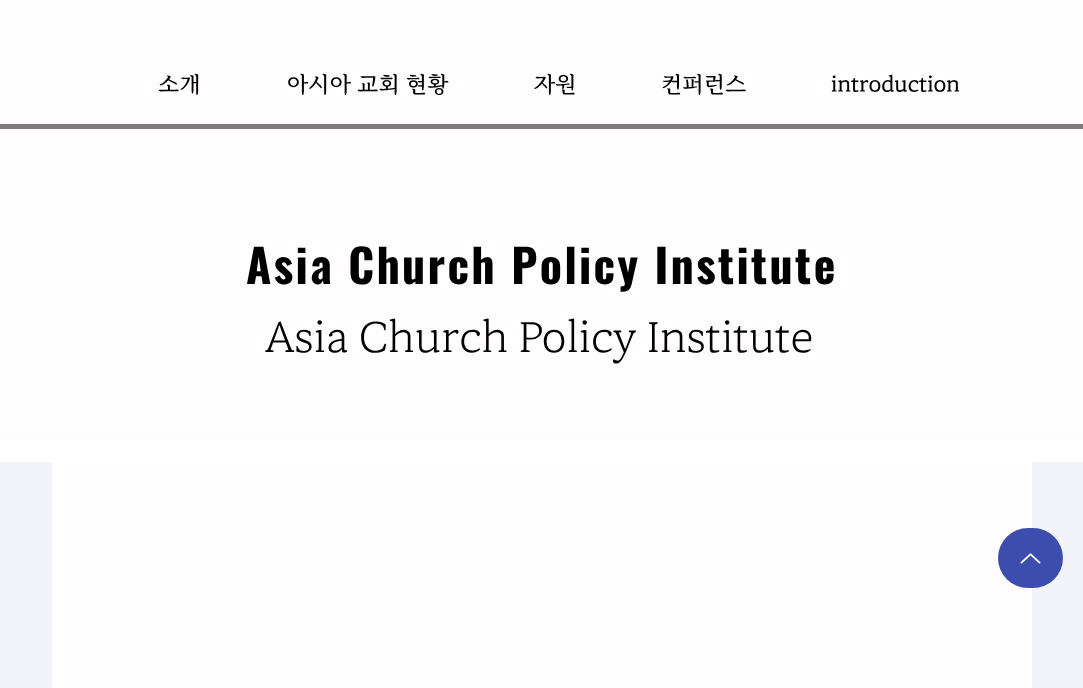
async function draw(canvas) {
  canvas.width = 1083;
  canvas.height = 688;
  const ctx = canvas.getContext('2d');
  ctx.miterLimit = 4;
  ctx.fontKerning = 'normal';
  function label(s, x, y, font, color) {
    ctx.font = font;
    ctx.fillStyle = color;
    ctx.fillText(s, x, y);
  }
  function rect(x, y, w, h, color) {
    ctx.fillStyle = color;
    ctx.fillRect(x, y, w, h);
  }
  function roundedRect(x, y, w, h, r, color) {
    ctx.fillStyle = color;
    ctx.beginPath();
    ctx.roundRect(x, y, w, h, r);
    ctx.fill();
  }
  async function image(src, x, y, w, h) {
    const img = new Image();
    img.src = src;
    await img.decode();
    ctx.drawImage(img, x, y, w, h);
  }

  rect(0, 0, 1083, 688, '#f2f4fa');
  rect(0, 0, 1083, 124, '#fffdfd');
  label('소개', 158, 91, '600 22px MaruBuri', '#000');
  label('아시아 교회 현황', 287, 91, '600 22px MaruBuri', '#000');
  label('자원', 534, 91, '600 22px MaruBuri', '#000');
  label('컨퍼런스', 661, 91, '600 22px MaruBuri', '#000');
  label('introduction', 831, 91, '600 22px MaruBuri', '#000');
  rect(0, 129, 1083, 309, '#fffdfd');
  rect(0, 124, 1083, 5, '#7d7c7c');
  ctx.letterSpacing = '2.3px';
  label('Asia Church Policy Institute', 246, 284, 'bold 46px Oswald', '#000');
  ctx.letterSpacing = '0px';
  ctx.wordSpacing = '-1px';
  label('Asia Church Policy Institute', 265, 351, '300 44px MaruBuri', '#000');
  rect(0, 438, 1083, 24, '#fff');
  rect(52, 462, 980, 226, '#fffdfd');
  roundedRect(998, 528, 65, 60, 30, '#3d4dad');
  await image('assets/img1.png', 1020, 553, 21, 11);
}

draw(document.querySelector('canvas'));
